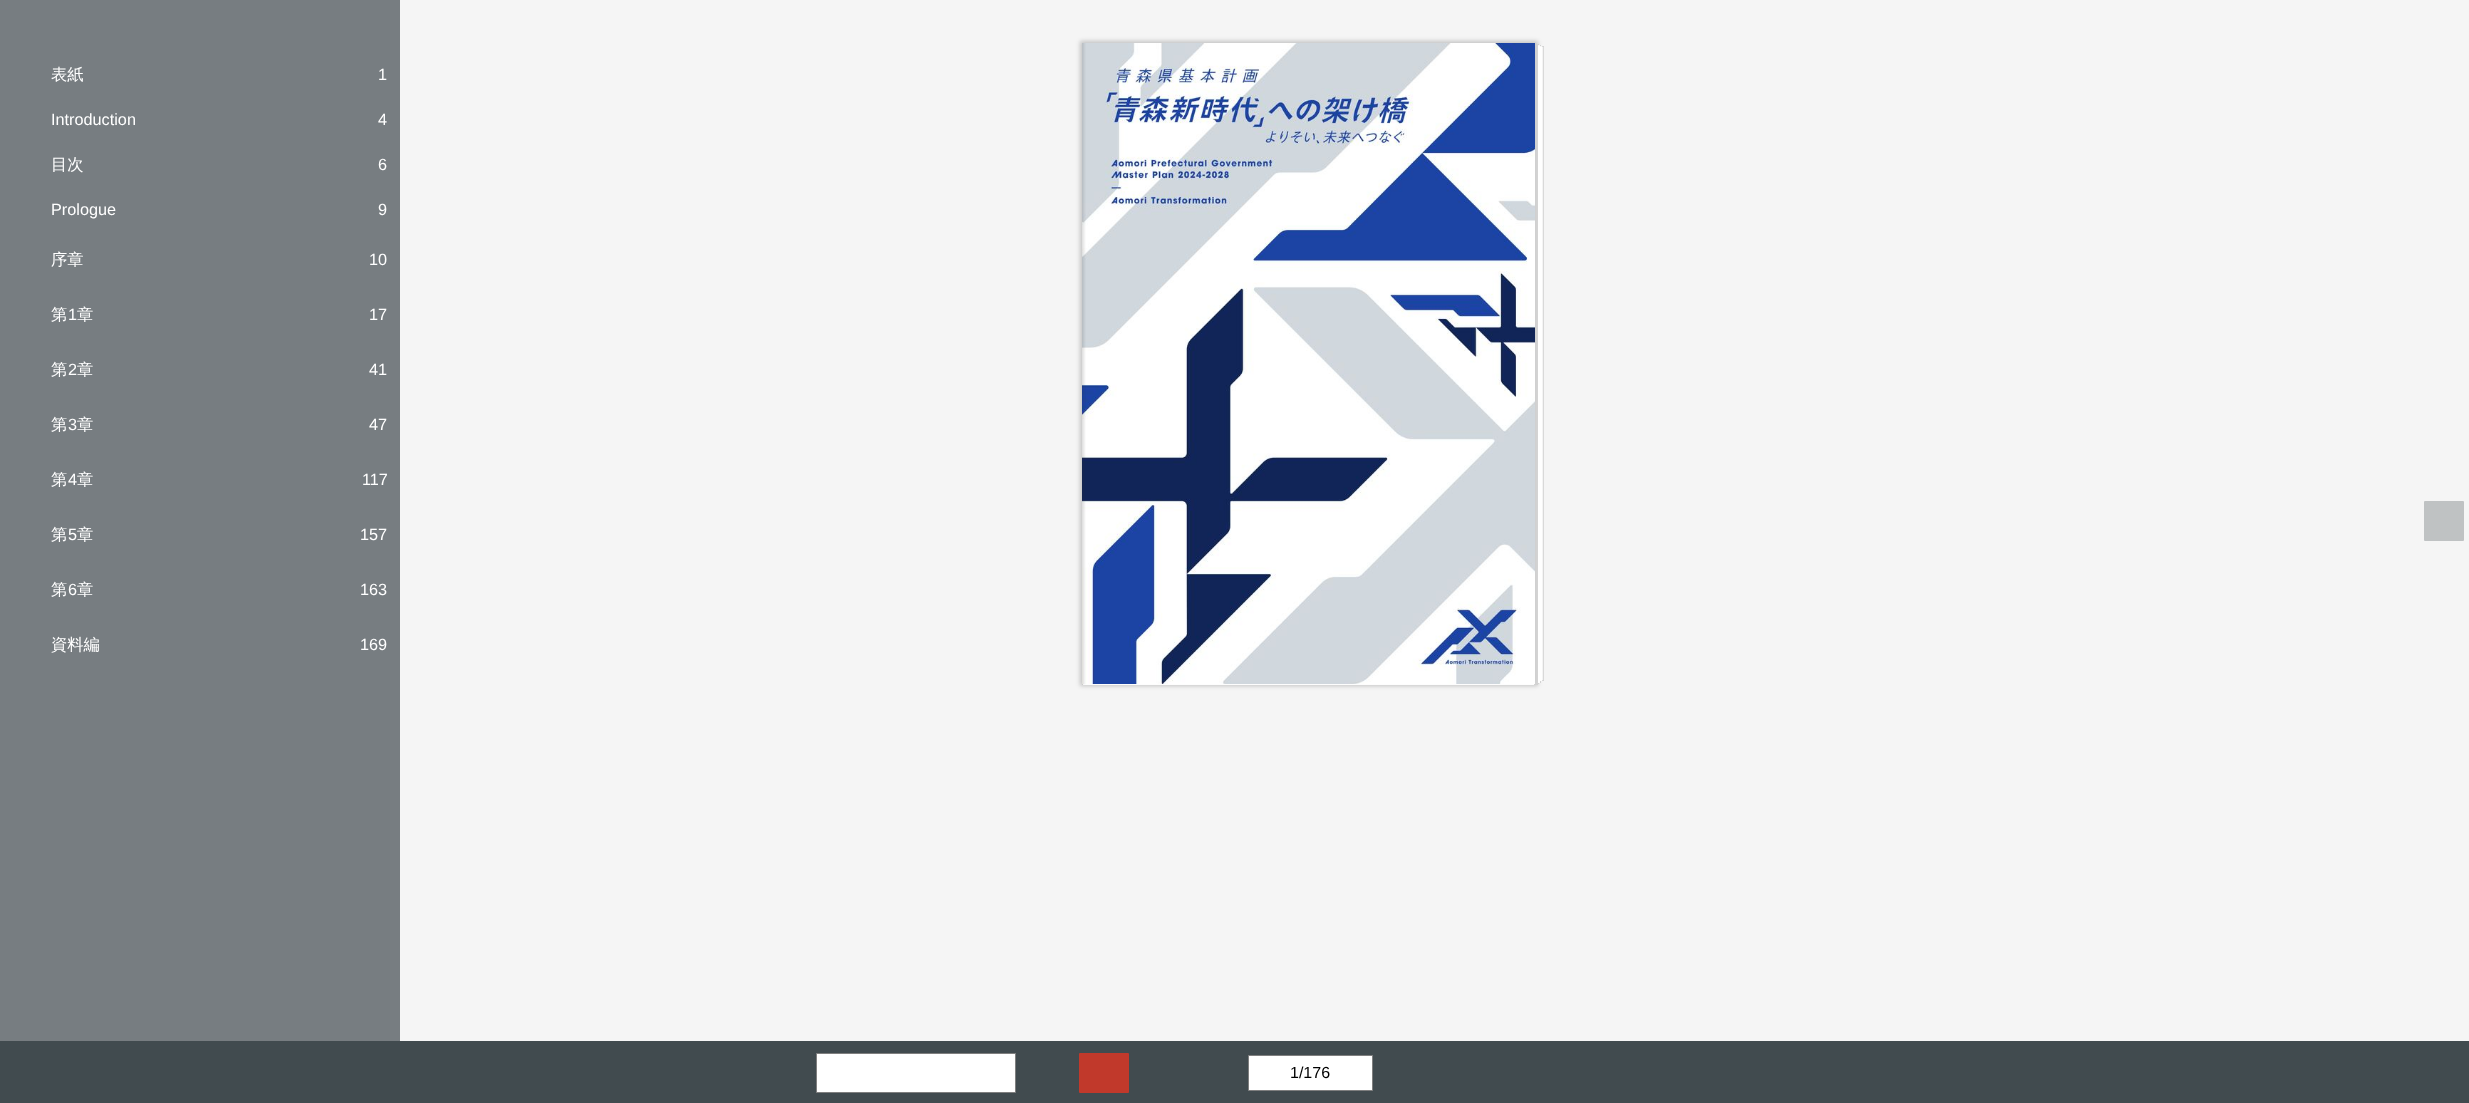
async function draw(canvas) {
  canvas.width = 2469;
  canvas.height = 1103;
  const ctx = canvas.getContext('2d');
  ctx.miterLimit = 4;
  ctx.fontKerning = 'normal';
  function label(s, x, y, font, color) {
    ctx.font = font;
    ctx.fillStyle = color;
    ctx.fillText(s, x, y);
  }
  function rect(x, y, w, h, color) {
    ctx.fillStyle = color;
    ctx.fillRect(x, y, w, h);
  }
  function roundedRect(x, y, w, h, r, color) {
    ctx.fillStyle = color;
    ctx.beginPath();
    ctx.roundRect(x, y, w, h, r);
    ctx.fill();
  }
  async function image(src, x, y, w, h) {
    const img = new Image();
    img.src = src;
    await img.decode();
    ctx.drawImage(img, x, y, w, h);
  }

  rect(0, 0, 2469, 1103, '#f5f5f5');
  ctx.fillStyle = '#00000033';
  ctx.filter = 'blur(2px)';
  ctx.beginPath();
  ctx.rect(1080, 41, 458, 645);
  ctx.fill();
  ctx.filter = 'none';
  rect(1083, 684, 452, 1, '#fdfdfd');
  ctx.strokeStyle = '#d2d2d2';
  ctx.lineWidth = 0.8;
  ctx.strokeRect(1534.4, 43.4, 2.2, 641.2);
  ctx.strokeRect(1535.4, 44.4, 2.2, 640.2);
  ctx.strokeRect(1536.4, 44.4, 2.2, 639.2);
  roundedRect(1538, 45, 1, 638, 0.5, '#fff');
  ctx.strokeRect(1539.4, 45.4, 0.2, 637.2);
  roundedRect(1539, 45, 1, 638, 0.5, '#fff');
  ctx.strokeRect(1540.4, 45.4, 0.2, 637.2);
  roundedRect(1540, 46, 1, 635, 0.5, '#fff');
  ctx.strokeRect(1541.4, 46.4, 2.2, 634.2);
  roundedRect(1541, 46, 1, 635, 0.5, '#fff');
  await image('assets/img1.png', 1082, 43, 453, 641);
  await image('assets/img2.png', 1082, 43, 4, 642);
  rect(0, 0, 400, 1041, '#777d81');
  label('表紙', 51, 80, '500 16.25px WenQuanYi Zen Hei', '#fff');
  label('1', 378, 80, '16.25px Liberation Sans', '#fff');
  label('Introduction', 51, 125, '16.25px Liberation Sans', '#fff');
  label('4', 378, 125, '16.25px Liberation Sans', '#fff');
  label('目次', 51, 170, '500 16.25px WenQuanYi Zen Hei', '#fff');
  label('6', 378, 170, '16.25px Liberation Sans', '#fff');
  label('Prologue', 51, 215, '16.25px Liberation Sans', '#fff');
  label('9', 378, 215, '16.25px Liberation Sans', '#fff');
  label('序章', 51, 265, '500 16.25px WenQuanYi Zen Hei', '#fff');
  label('10', 369, 265, '16.25px Liberation Sans', '#fff');
  label('第', 51, 320, '500 16.25px WenQuanYi Zen Hei', '#fff');
  label('1', 68, 320, '16.25px Liberation Sans', '#fff');
  label('章', 77, 320, '500 16.25px WenQuanYi Zen Hei', '#fff');
  label('17', 369, 320, '16.25px Liberation Sans', '#fff');
  label('第', 51, 375, '500 16.25px WenQuanYi Zen Hei', '#fff');
  label('2', 68, 375, '16.25px Liberation Sans', '#fff');
  label('章', 77, 375, '500 16.25px WenQuanYi Zen Hei', '#fff');
  label('41', 369, 375, '16.25px Liberation Sans', '#fff');
  label('第', 51, 430, '500 16.25px WenQuanYi Zen Hei', '#fff');
  label('3', 68, 430, '16.25px Liberation Sans', '#fff');
  label('章', 77, 430, '500 16.25px WenQuanYi Zen Hei', '#fff');
  label('47', 369, 430, '16.25px Liberation Sans', '#fff');
  label('第', 51, 485, '500 16.25px WenQuanYi Zen Hei', '#fff');
  label('4', 68, 485, '16.25px Liberation Sans', '#fff');
  label('章', 77, 485, '500 16.25px WenQuanYi Zen Hei', '#fff');
  label('117', 362, 485, '16.25px Liberation Sans', '#fff');
  label('第', 51, 540, '500 16.25px WenQuanYi Zen Hei', '#fff');
  label('5', 68, 540, '16.25px Liberation Sans', '#fff');
  label('章', 77, 540, '500 16.25px WenQuanYi Zen Hei', '#fff');
  label('157', 360, 540, '16.25px Liberation Sans', '#fff');
  label('第', 51, 595, '500 16.25px WenQuanYi Zen Hei', '#fff');
  label('6', 68, 595, '16.25px Liberation Sans', '#fff');
  label('章', 77, 595, '500 16.25px WenQuanYi Zen Hei', '#fff');
  label('163', 360, 595, '16.25px Liberation Sans', '#fff');
  label('資料編', 51, 650, '500 16.25px WenQuanYi Zen Hei', '#fff');
  label('169', 360, 650, '16.25px Liberation Sans', '#fff');
  roundedRect(2424, 501, 40, 40, 1, '#bfc2c3');
  rect(0, 1041, 2469, 62, '#414b4f');
  ctx.fillStyle = '#fff';
  ctx.beginPath();
  ctx.rect(816.5, 1053.5, 199, 39);
  ctx.fill();
  ctx.strokeStyle = '#7f7f7f';
  ctx.lineWidth = 1;
  ctx.stroke();
  roundedRect(1079, 1053, 50, 40, 1, '#c1392b');
  ctx.fillStyle = '#fff';
  ctx.beginPath();
  ctx.rect(1248.5, 1055.5, 124, 35);
  ctx.fill();
  ctx.stroke();
  label('1/176', 1290, 1078, '16px Liberation Sans', '#000');
}

draw(document.querySelector('canvas'));
